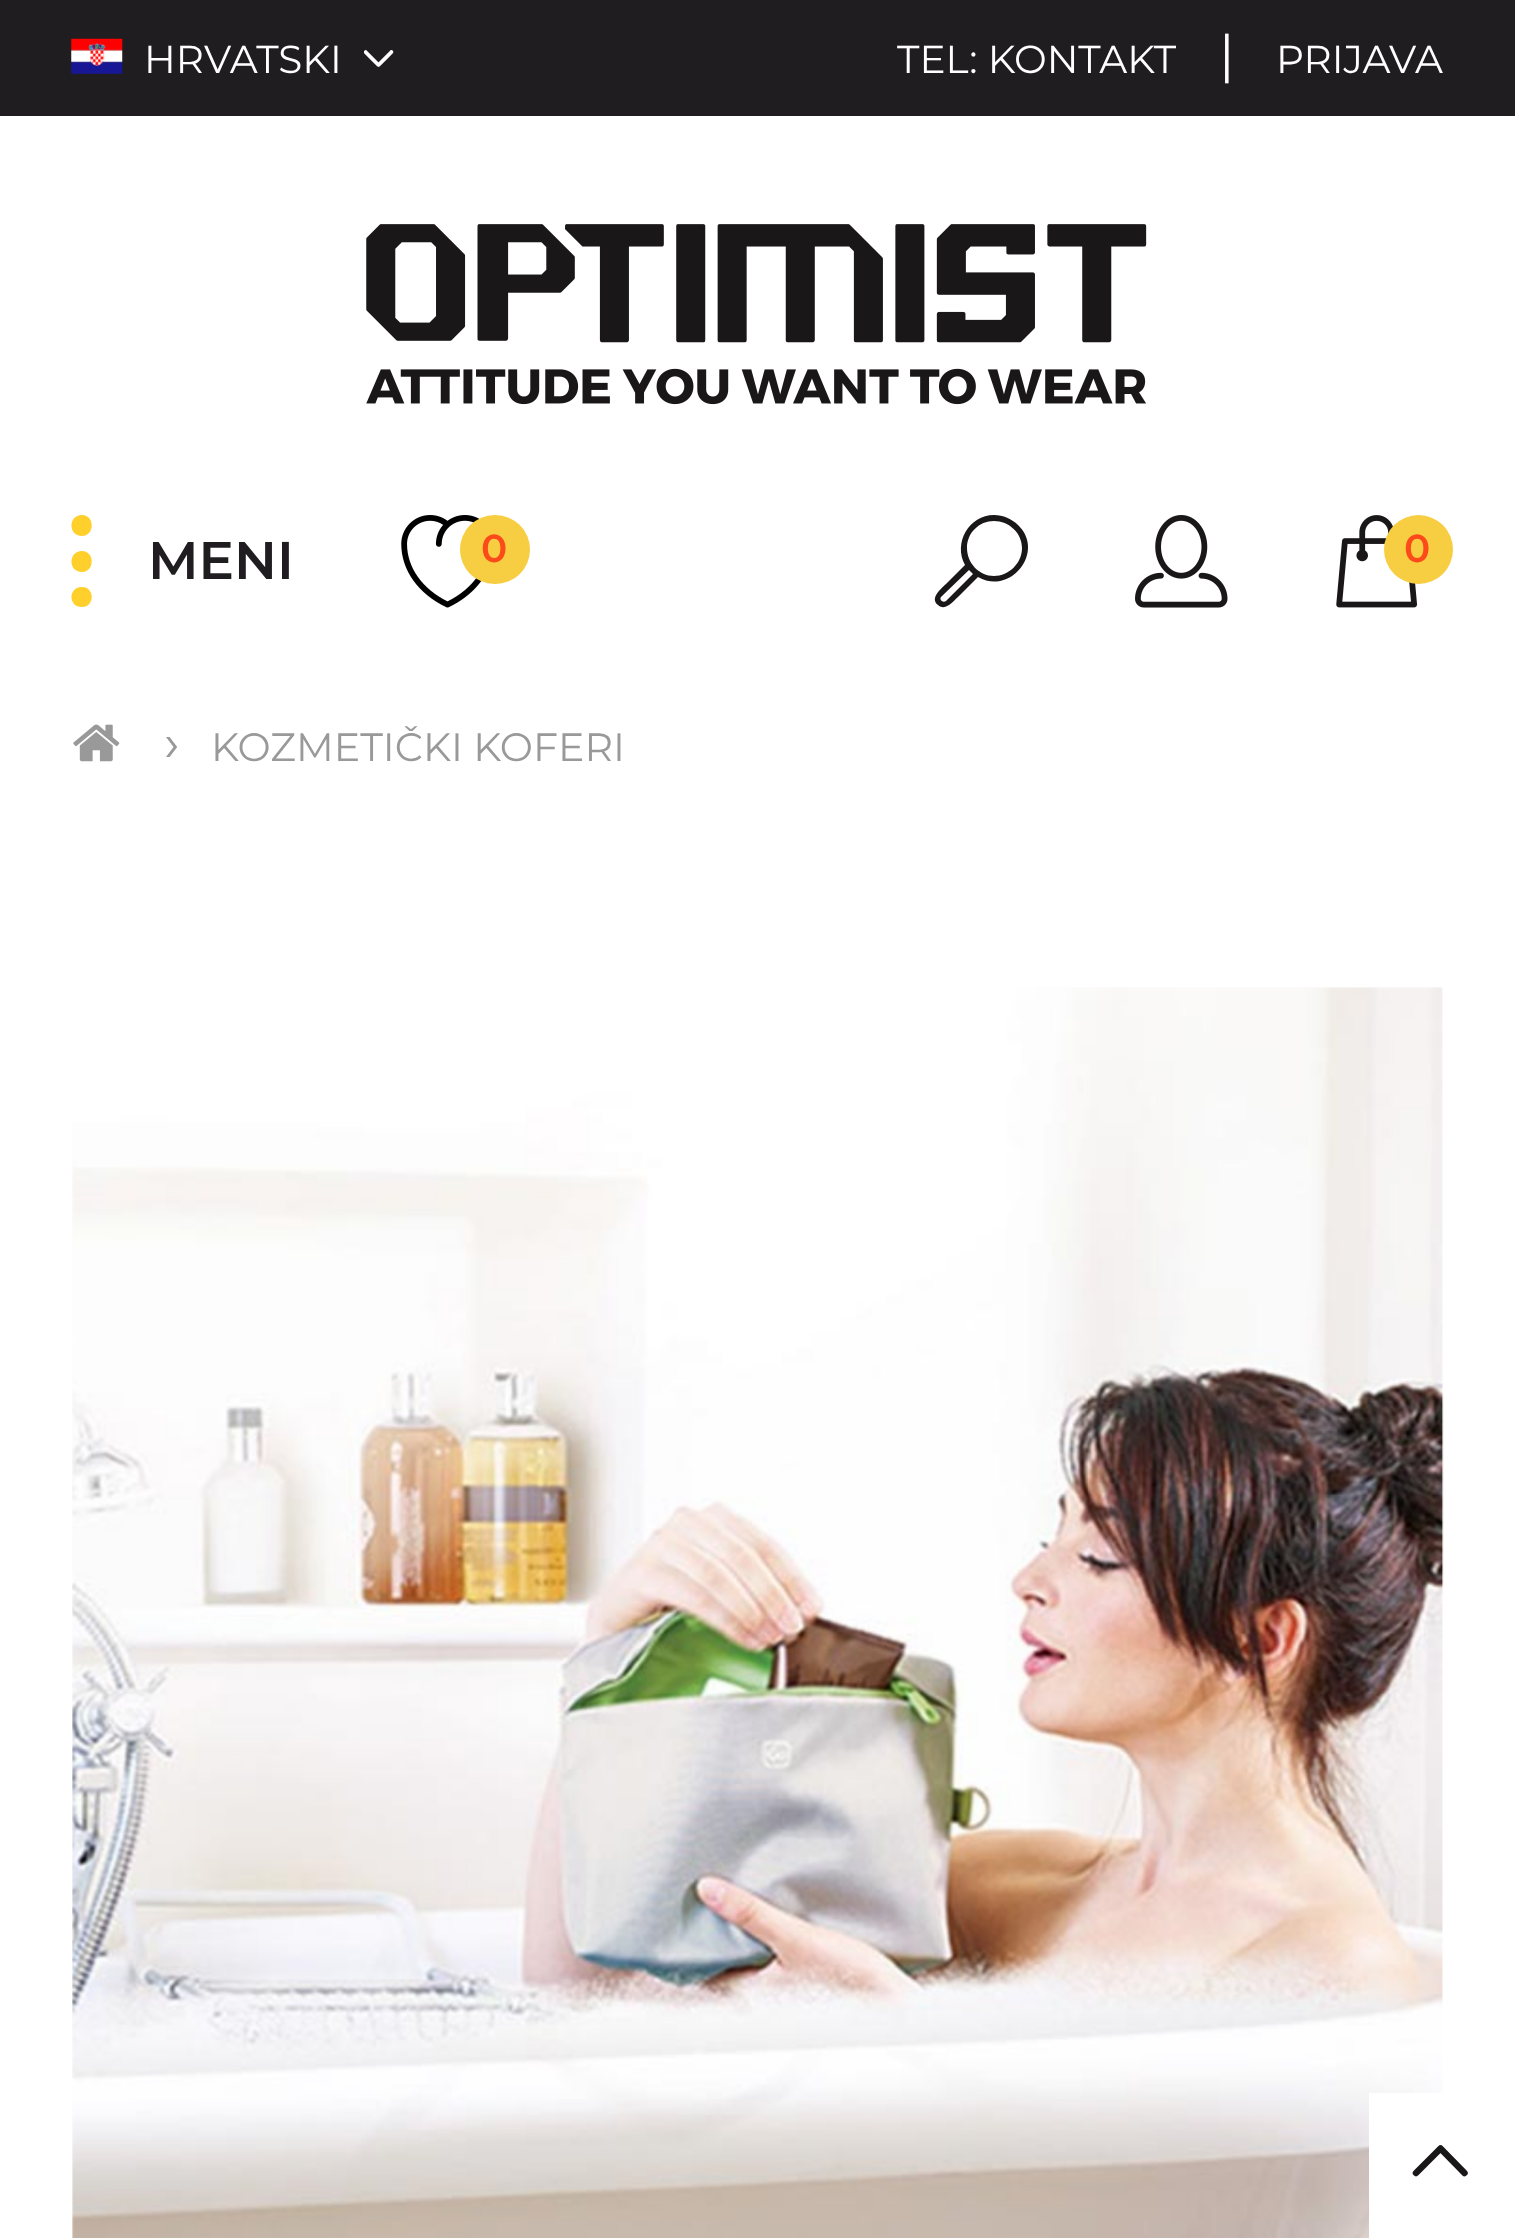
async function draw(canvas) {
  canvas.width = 1515;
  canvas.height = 2238;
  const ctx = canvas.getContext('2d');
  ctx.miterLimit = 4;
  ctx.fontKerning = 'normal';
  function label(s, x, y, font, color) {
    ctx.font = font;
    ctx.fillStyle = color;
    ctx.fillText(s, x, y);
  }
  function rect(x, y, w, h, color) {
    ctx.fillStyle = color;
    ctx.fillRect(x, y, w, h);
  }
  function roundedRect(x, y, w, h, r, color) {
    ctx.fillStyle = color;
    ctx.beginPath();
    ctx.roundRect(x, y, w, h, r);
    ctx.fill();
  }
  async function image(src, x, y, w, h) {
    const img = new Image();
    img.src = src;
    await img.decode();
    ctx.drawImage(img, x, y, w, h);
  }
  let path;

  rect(0, 0, 1515, 2238, '#fff');
  rect(0, 0, 1515, 116, '#1f1d1f');
  await image('assets/img1.png', 71, 38, 52, 36);
  label('HRVATSKI', 144, 73, '39px Montserrat', '#fff');
  await image('assets/img2.png', 364, 50, 30, 17);
  label('TEL: KONTAKT', 897, 73, '39px Montserrat', '#fff');
  label('|', 1219, 73, '53px Montserrat', '#fff');
  label('PRIJAVA', 1276, 73, '39px Montserrat', '#fff');
  await image('assets/img3.png', 366, 224, 781, 181);
  ctx.fillStyle = '#ffcf2c';
  path = new Path2D('M82 587C68 587 68 607 82 607C95 607 95 587 82 587ZM82 551C68 551 68 572 82 572C95 572 95 551 82 551ZM82 536C95 536 95 515 82 515C68 515 68 536 82 536Z');
  ctx.fill(path, 'evenodd');
  label('MENI', 148, 579, '600 53px Montserrat', '#1f1d1f');
  await image('assets/img4.png', 401, 515, 81, 93);
  roundedRect(460, 515, 70, 69, 34.5, '#f7ce41');
  label('0', 481, 562, '600 39px Montserrat', '#fd4a1a');
  ctx.fillStyle = '#1a1719';
  path = new Path2D('M994 515C969 515 953 543 965 565L947 583C942 588 929 598 938 605C946 612 954 600 959 596L978 577C1010 596 1046 552 1018 525C1012 519 1003 515 994 515ZM946 601C943 603 939 600 941 597L969 570L973 574ZM994 576C979 576 967 563 967 548C967 533 979 521 994 521C1009 521 1022 533 1022 548C1022 563 1009 576 994 576Z');
  ctx.fill(path);
  await image('assets/img5.png', 1135, 515, 93, 93);
  await image('assets/img6.png', 1336, 515, 81, 93);
  ctx.fillStyle = '#f7ce41';
  ctx.beginPath();
  ctx.arc(1418.5, 549.5, 34.5, 0, 2 * Math.PI);
  ctx.fill();
  label('0', 1404, 562, '600 39px Montserrat', '#fd4a1a');
  await image('assets/img7.png', 73, 724, 47, 38);
  label('›', 164, 761, '53px Montserrat', '#999');
  label('KOZMETIČKI KOFERI', 211, 761, '39.5px Montserrat', '#999');
  await image('assets/img8.png', 72, 987, 1372, 1251);
  rect(1369, 2093, 75, 145, '#fff');
  path = new Path2D('M1464.5 2173L1440.5 2148.5L1416 2173');
  ctx.strokeStyle = '#1a1719';
  ctx.lineWidth = 6.5;
  ctx.lineCap = 'round';
  ctx.lineJoin = 'round';
  ctx.stroke(path);
}

draw(document.querySelector('canvas'));
